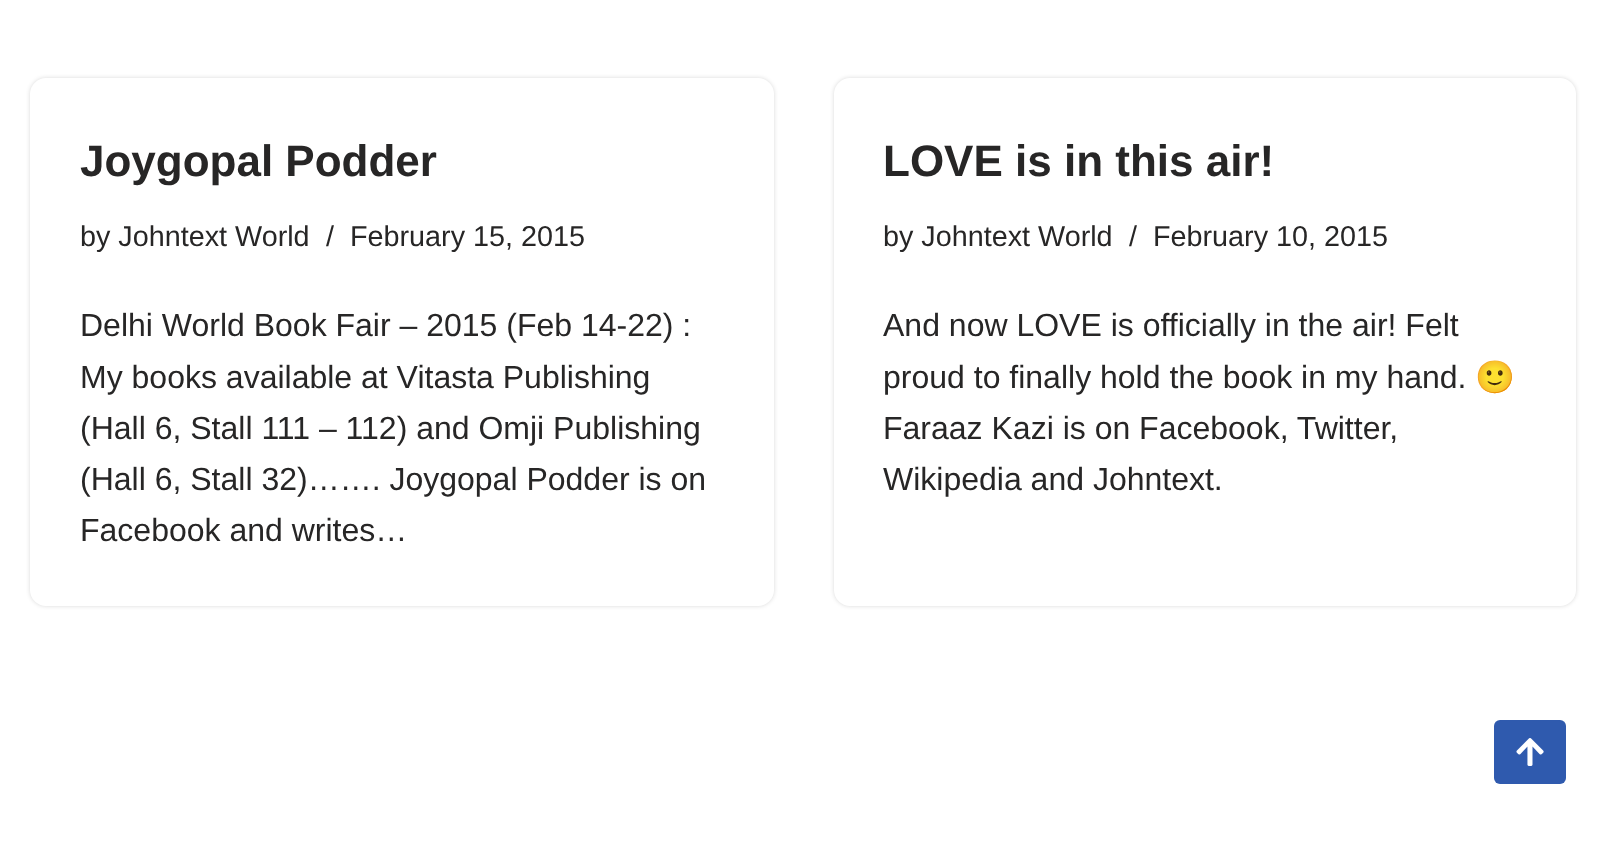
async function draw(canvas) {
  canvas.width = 1606;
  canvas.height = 843;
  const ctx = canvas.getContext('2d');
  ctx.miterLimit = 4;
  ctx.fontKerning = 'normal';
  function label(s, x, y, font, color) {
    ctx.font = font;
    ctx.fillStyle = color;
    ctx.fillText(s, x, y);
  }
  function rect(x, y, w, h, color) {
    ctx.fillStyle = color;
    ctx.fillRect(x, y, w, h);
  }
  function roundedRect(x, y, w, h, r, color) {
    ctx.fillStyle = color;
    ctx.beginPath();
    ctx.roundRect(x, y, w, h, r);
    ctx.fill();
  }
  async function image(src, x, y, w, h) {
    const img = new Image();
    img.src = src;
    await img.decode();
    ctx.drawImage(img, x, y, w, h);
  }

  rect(0, 0, 1606, 843, '#fff');
  ctx.fillStyle = '#00000026';
  ctx.filter = 'blur(2px)';
  ctx.beginPath();
  ctx.roundRect(30, 78, 744, 528, 16);
  ctx.fill();
  ctx.filter = 'none';
  roundedRect(30, 78, 744, 528, 16, '#fff');
  label('Joygopal Podder', 80, 176, 'bold 44px Liberation Sans', '#272626');
  label('by Johntext World', 80, 246, '28.75px Liberation Sans', '#272626');
  label('/', 326, 246, '28.75px Liberation Sans', '#272626');
  label('February 15, 2015', 350, 246, '28.75px Liberation Sans', '#272626');
  label('Delhi World Book Fair – 2015 (Feb 14-22) :', 80, 336, '32px Liberation Sans', '#272626');
  label('My books available at Vitasta Publishing', 80, 388, '32px Liberation Sans', '#272626');
  label('(Hall 6, Stall 111 – 112) and Omji Publishing', 80, 439, '32px Liberation Sans', '#272626');
  label('(Hall 6, Stall 32)……. Joygopal Podder is on', 80, 490, '32px Liberation Sans', '#272626');
  label('Facebook and writes…', 80, 541, '32px Liberation Sans', '#272626');
  ctx.fillStyle = '#00000026';
  ctx.filter = 'blur(2px)';
  ctx.beginPath();
  ctx.roundRect(834, 78, 742, 528, 16);
  ctx.fill();
  ctx.filter = 'none';
  roundedRect(834, 78, 742, 528, 16, '#fff');
  label('LOVE is in this air!', 883, 176, 'bold 44px Liberation Sans', '#272626');
  label('by Johntext World', 883, 246, '28.75px Liberation Sans', '#272626');
  label('/', 1129, 246, '28.75px Liberation Sans', '#272626');
  label('February 10, 2015', 1153, 246, '28.75px Liberation Sans', '#272626');
  label('And now LOVE is officially in the air! Felt', 883, 336, '32px Liberation Sans', '#272626');
  label('proud to finally hold the book in my hand.', 883, 388, '32px Liberation Sans', '#272626');
  label('🙂', 1475, 388, '32px Noto Color Emoji', '#272626');
  label('Faraaz Kazi is on Facebook, Twitter,', 883, 439, '32px Liberation Sans', '#272626');
  label('Wikipedia and Johntext.', 883, 490, '32px Liberation Sans', '#272626');
  roundedRect(1494, 720, 72, 64, 6, '#2f5aae');
  await image('assets/img1.png', 1516, 738, 28, 28);
}

draw(document.querySelector('canvas'));
